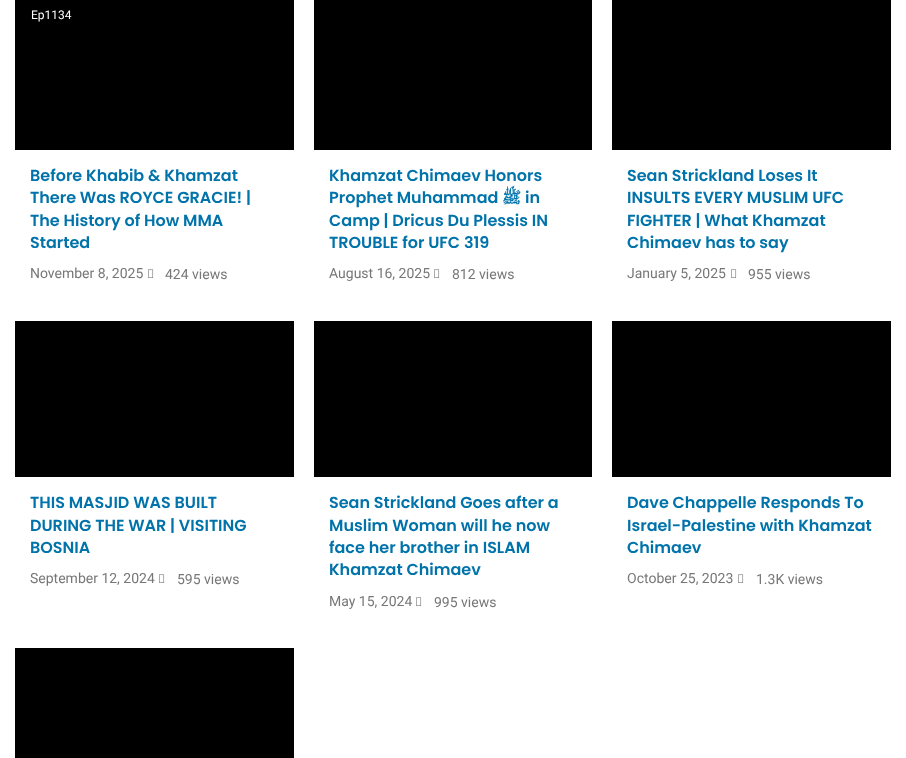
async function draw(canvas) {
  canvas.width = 906;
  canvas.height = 758;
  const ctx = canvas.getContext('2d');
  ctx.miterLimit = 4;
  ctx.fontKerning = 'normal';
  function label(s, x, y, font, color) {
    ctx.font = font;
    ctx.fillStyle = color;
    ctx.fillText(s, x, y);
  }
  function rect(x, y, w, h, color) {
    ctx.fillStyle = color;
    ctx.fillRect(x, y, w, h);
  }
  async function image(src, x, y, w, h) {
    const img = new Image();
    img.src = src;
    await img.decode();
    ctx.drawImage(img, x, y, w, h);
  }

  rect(0, 0, 906, 758, '#fff');
  rect(15, 0, 279, 150, '#000');
  label('Ep1134', 31, 19, '12px Roboto', '#fff');
  label('Before Khabib & Khamzat', 30, 181, '600 16px Poppins', '#0073aa');
  label('There Was ROYCE GRACIE! |', 30, 203, '600 16px Poppins', '#0073aa');
  label('The History of How MMA', 30, 226, '600 16px Poppins', '#0073aa');
  label('Started', 30, 248, '600 16px Poppins', '#0073aa');
  label('November 8, 2025', 30, 278, '14px Roboto', '#777');
  await image('assets/img1.png', 148, 269, 6, 9);
  label('424 views', 165, 279, '14px Roboto', '#777');
  rect(314, 0, 278, 150, '#000');
  label('Khamzat Chimaev Honors', 329, 181, '600 16px Poppins', '#0073aa');
  label('Prophet Muhammad', 329, 203, '600 16px Poppins', '#0073aa');
  ctx.direction = 'rtl';
  label('ﷺ', 521, 203, 'bold 16px Lateef', '#0073aa');
  ctx.direction = 'ltr';
  label('in', 525, 203, '600 16px Poppins', '#0073aa');
  label('Camp | Dricus Du Plessis IN', 329, 226, '600 16px Poppins', '#0073aa');
  label('TROUBLE for UFC 319', 329, 248, '600 16px Poppins', '#0073aa');
  label('August 16, 2025', 329, 278, '14px Roboto', '#777');
  await image('assets/img1.png', 434, 269, 6, 9);
  label('812 views', 452, 279, '14px Roboto', '#777');
  rect(612, 0, 279, 150, '#000');
  label('Sean Strickland Loses It', 627, 181, '600 16px Poppins', '#0073aa');
  label('INSULTS EVERY MUSLIM UFC', 627, 203, '600 16px Poppins', '#0073aa');
  label('FIGHTER | What Khamzat', 627, 226, '600 16px Poppins', '#0073aa');
  label('Chimaev has to say', 627, 248, '600 16px Poppins', '#0073aa');
  label('January 5, 2025', 627, 278, '14px Roboto', '#777');
  await image('assets/img1.png', 731, 269, 6, 9);
  label('955 views', 748, 279, '14px Roboto', '#777');
  rect(15, 321, 279, 156, '#000');
  label('THIS MASJID WAS BUILT', 30, 508, '600 16px Poppins', '#0073aa');
  label('DURING THE WAR | VISITING', 30, 531, '600 16px Poppins', '#0073aa');
  label('BOSNIA', 30, 553, '600 16px Poppins', '#0073aa');
  label('September 12, 2024', 30, 583, '14px Roboto', '#777');
  await image('assets/img1.png', 159, 574, 6, 9);
  label('595 views', 177, 584, '14px Roboto', '#777');
  rect(314, 321, 278, 156, '#000');
  label('Sean Strickland Goes after a', 329, 508, '600 16px Poppins', '#0073aa');
  label('Muslim Woman will he now', 329, 531, '600 16px Poppins', '#0073aa');
  label('face her brother in ISLAM', 329, 553, '600 16px Poppins', '#0073aa');
  label('Khamzat Chimaev', 329, 575, '600 16px Poppins', '#0073aa');
  label('May 15, 2024', 329, 606, '14px Roboto', '#777');
  await image('assets/img1.png', 416, 597, 6, 9);
  label('995 views', 434, 607, '14px Roboto', '#777');
  rect(612, 321, 279, 156, '#000');
  label('Dave Chappelle Responds To', 627, 508, '600 16px Poppins', '#0073aa');
  label('Israel-Palestine with Khamzat', 627, 531, '600 16px Poppins', '#0073aa');
  label('Chimaev', 627, 553, '600 16px Poppins', '#0073aa');
  label('October 25, 2023', 627, 583, '14px Roboto', '#777');
  await image('assets/img1.png', 738, 574, 6, 9);
  label('1.3K views', 756, 584, '14px Roboto', '#777');
  rect(15, 648, 279, 110, '#000');
}

draw(document.querySelector('canvas'));
